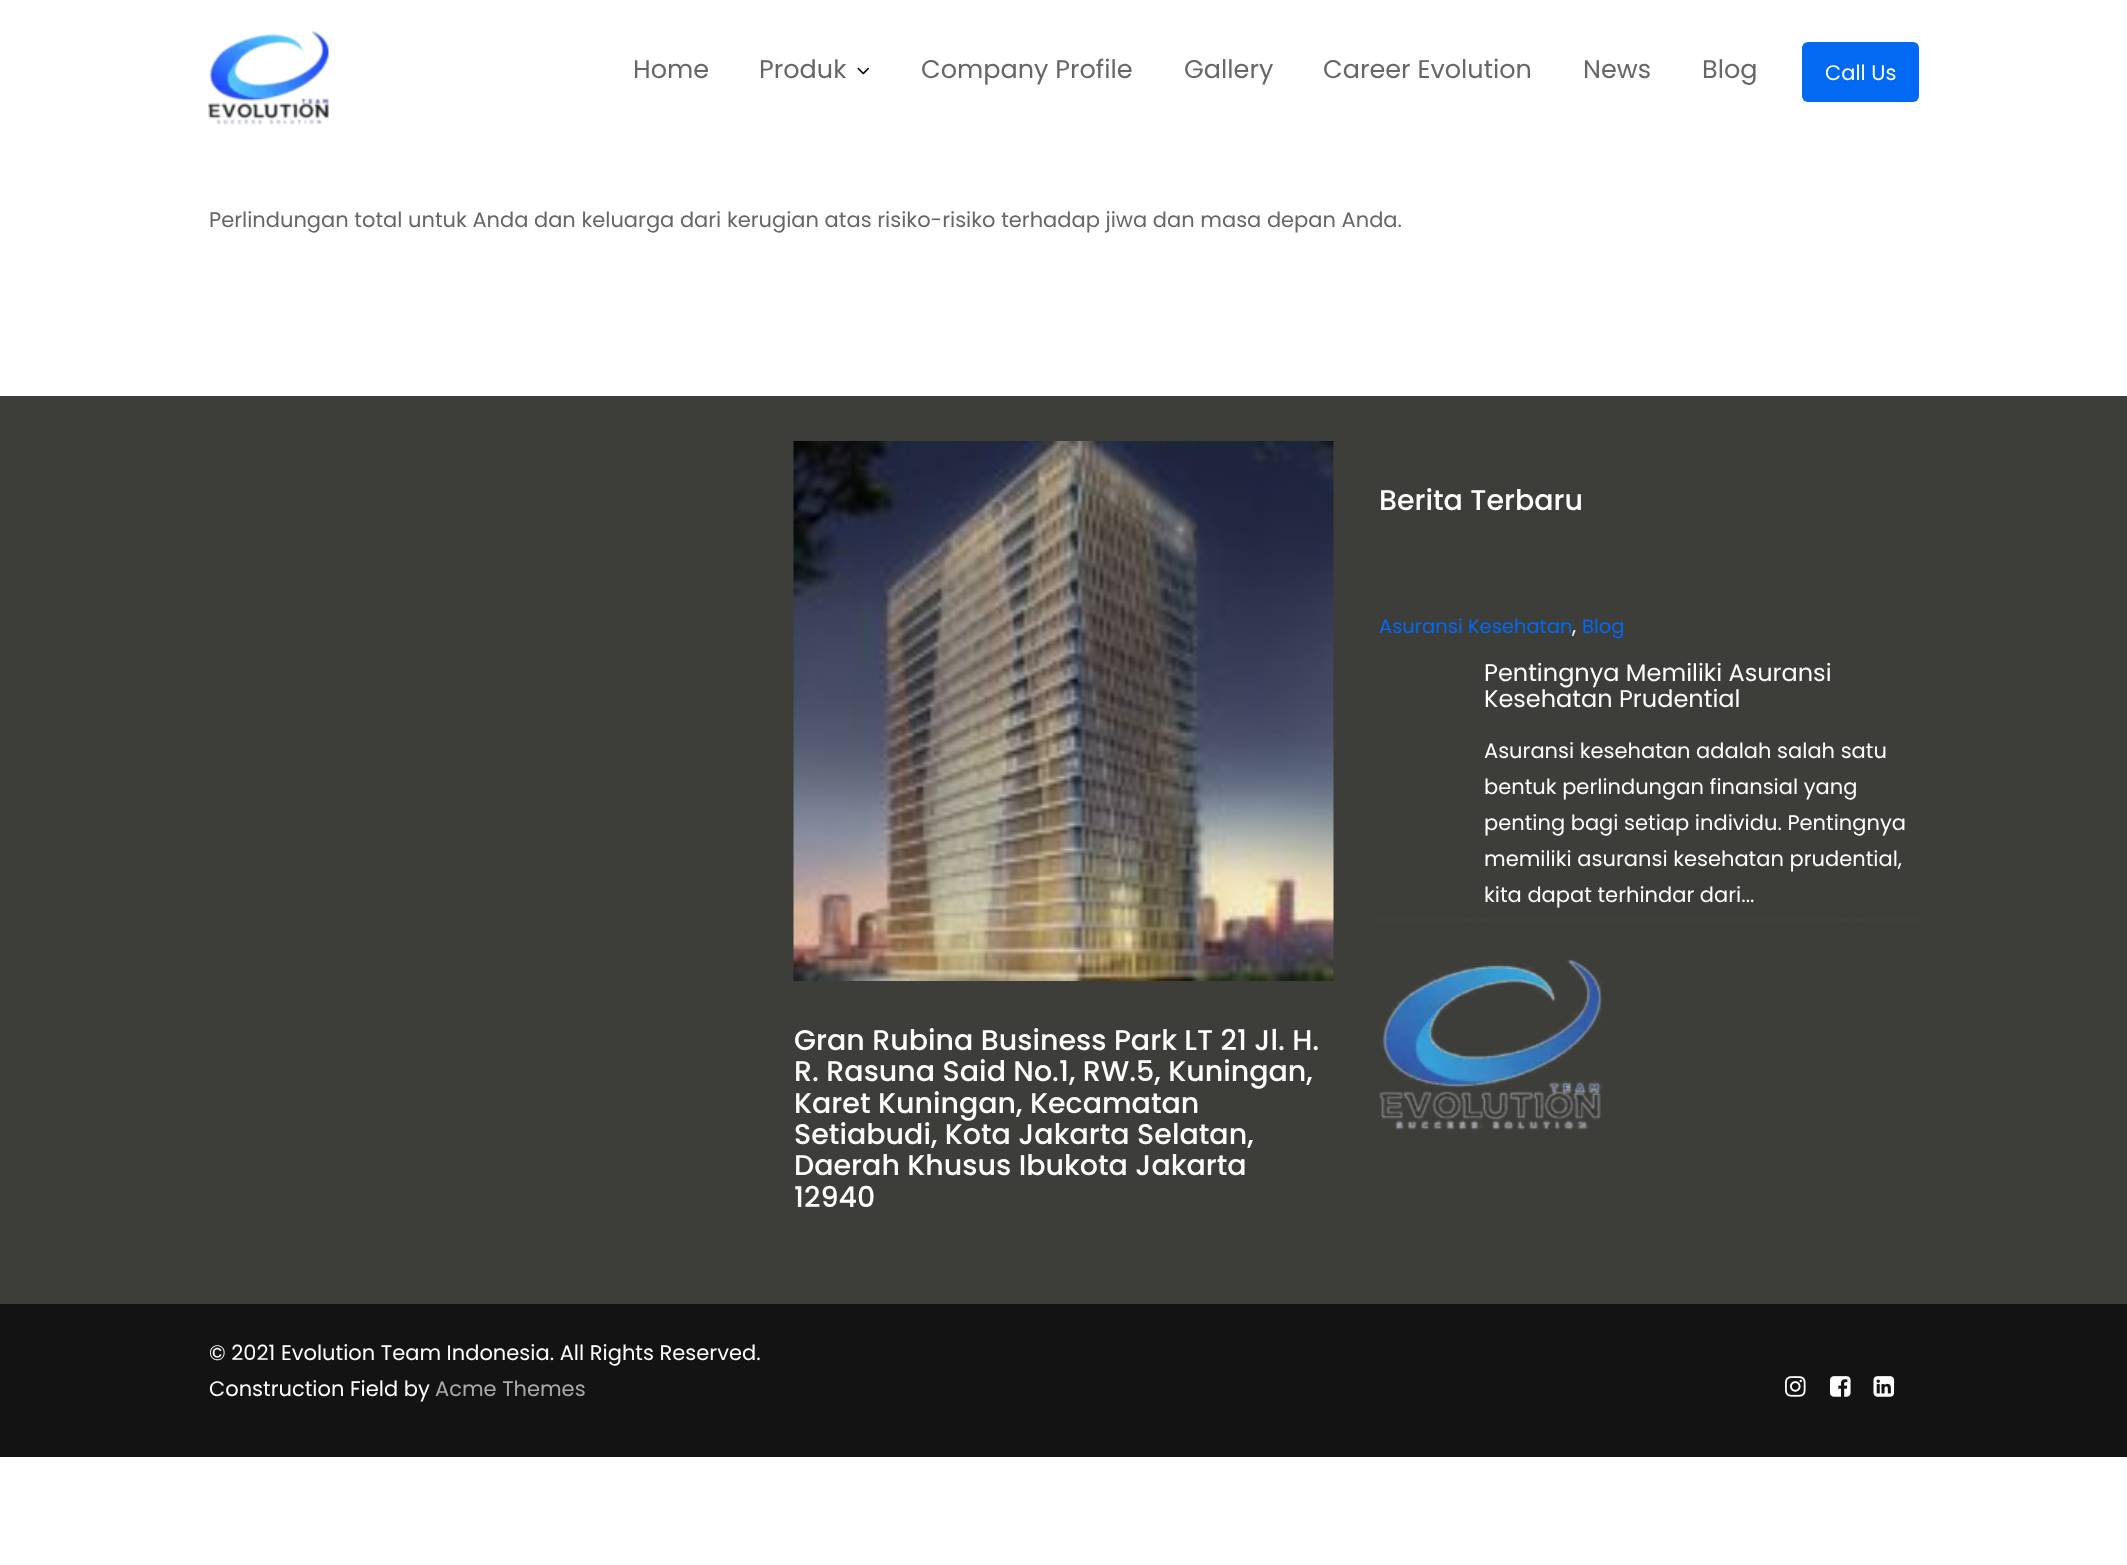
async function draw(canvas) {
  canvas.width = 2127;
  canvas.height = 1565;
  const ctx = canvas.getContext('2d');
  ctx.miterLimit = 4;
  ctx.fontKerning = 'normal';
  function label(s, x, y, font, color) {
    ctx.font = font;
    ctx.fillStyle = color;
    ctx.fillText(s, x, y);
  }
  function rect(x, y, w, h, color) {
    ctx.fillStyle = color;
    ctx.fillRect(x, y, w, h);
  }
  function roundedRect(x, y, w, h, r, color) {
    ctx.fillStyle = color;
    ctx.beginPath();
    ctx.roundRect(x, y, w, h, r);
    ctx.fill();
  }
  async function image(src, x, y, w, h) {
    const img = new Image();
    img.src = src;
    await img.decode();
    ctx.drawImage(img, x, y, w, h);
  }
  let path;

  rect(0, 0, 2127, 1565, '#fff');
  await image('assets/img1.png', 208, 31, 121, 94);
  label('Home', 633, 78, '25.5px Poppins', '#666');
  label('Produk', 759, 78, '25.5px Poppins', '#666');
  await image('assets/img2.png', 857, 67, 13, 8);
  label('Company Profile', 921, 78, '25.5px Poppins', '#666');
  label('Gallery', 1184, 78, '25.5px Poppins', '#666');
  label('Career Evolution', 1323, 78, '25.5px Poppins', '#666');
  label('News', 1583, 78, '25.5px Poppins', '#666');
  label('Blog', 1702, 78, '25.5px Poppins', '#666');
  roundedRect(1802, 42, 117, 60, 6, '#026af2');
  label('Call Us', 1825, 80, '21px Poppins', '#fff');
  label('Perlindungan total untuk Anda dan keluarga dari kerugian atas risiko-risiko terhadap jiwa dan masa depan Anda.', 209, 227, '21px Poppins', '#666');
  rect(0, 396, 2127, 908, '#3d3d3a');
  label('Berita Terbaru', 1379, 510, '500 28.5px Poppins', '#fff');
  path = new Path2D('M1378.5 920H1918.5');
  ctx.strokeStyle = '#444';
  ctx.lineWidth = 1.5;
  ctx.setLineDash([4.5, 3.04]);
  ctx.stroke(path);
  label('Asuransi Kesehatan', 1379, 633, '19.5px Poppins', '#026af2');
  label(',', 1572, 633, '21px Poppins', '#fff');
  label('Blog', 1582, 633, '19.5px Poppins', '#026af2');
  label('Pentingnya Memiliki Asuransi', 1484, 681, '24px Poppins', '#fff');
  label('Kesehatan Prudential', 1484, 707, '24px Poppins', '#fff');
  label('Asuransi kesehatan adalah salah satu', 1484, 758, '21px Poppins', '#fff');
  label('bentuk perlindungan finansial yang', 1484, 794, '21px Poppins', '#fff');
  label('penting bagi setiap individu. Pentingnya', 1484, 830, '21px Poppins', '#fff');
  label('memiliki asuransi kesehatan prudential,', 1484, 866, '21px Poppins', '#fff');
  label('kita dapat terhindar dari...', 1484, 902, '21px Poppins', '#fff');
  await image('assets/img3.png', 1379, 959, 224, 171);
  await image('assets/img4.png', 793, 441, 541, 540);
  label('Gran Rubina Business Park LT 21 Jl. H.', 794, 1050, '500 28.5px Poppins', '#fff');
  label('R. Rasuna Said No.1, RW.5, Kuningan,', 794, 1081, '500 28.5px Poppins', '#fff');
  label('Karet Kuningan, Kecamatan', 794, 1113, '500 28.5px Poppins', '#fff');
  label('Setiabudi, Kota Jakarta Selatan,', 794, 1144, '500 28.5px Poppins', '#fff');
  label('Daerah Khusus Ibukota Jakarta', 794, 1175, '500 28.5px Poppins', '#fff');
  label('12940', 794, 1207, '500 28.5px Poppins', '#fff');
  rect(0, 1304, 2127, 153, '#131313');
  label('© 2021 Evolution Team Indonesia. All Rights Reserved.', 209, 1360, '21px Poppins', '#fff');
  label('Construction Field by', 209, 1396, '21px Poppins', '#fff');
  label('Acme Themes', 435, 1396, '21px Poppins', '#aaa');
  await image('assets/img5.png', 1785, 1376, 21, 21);
  await image('assets/img6.png', 1830, 1376, 21, 21);
  await image('assets/img7.png', 1873, 1376, 22, 21);
}

draw(document.querySelector('canvas'));
